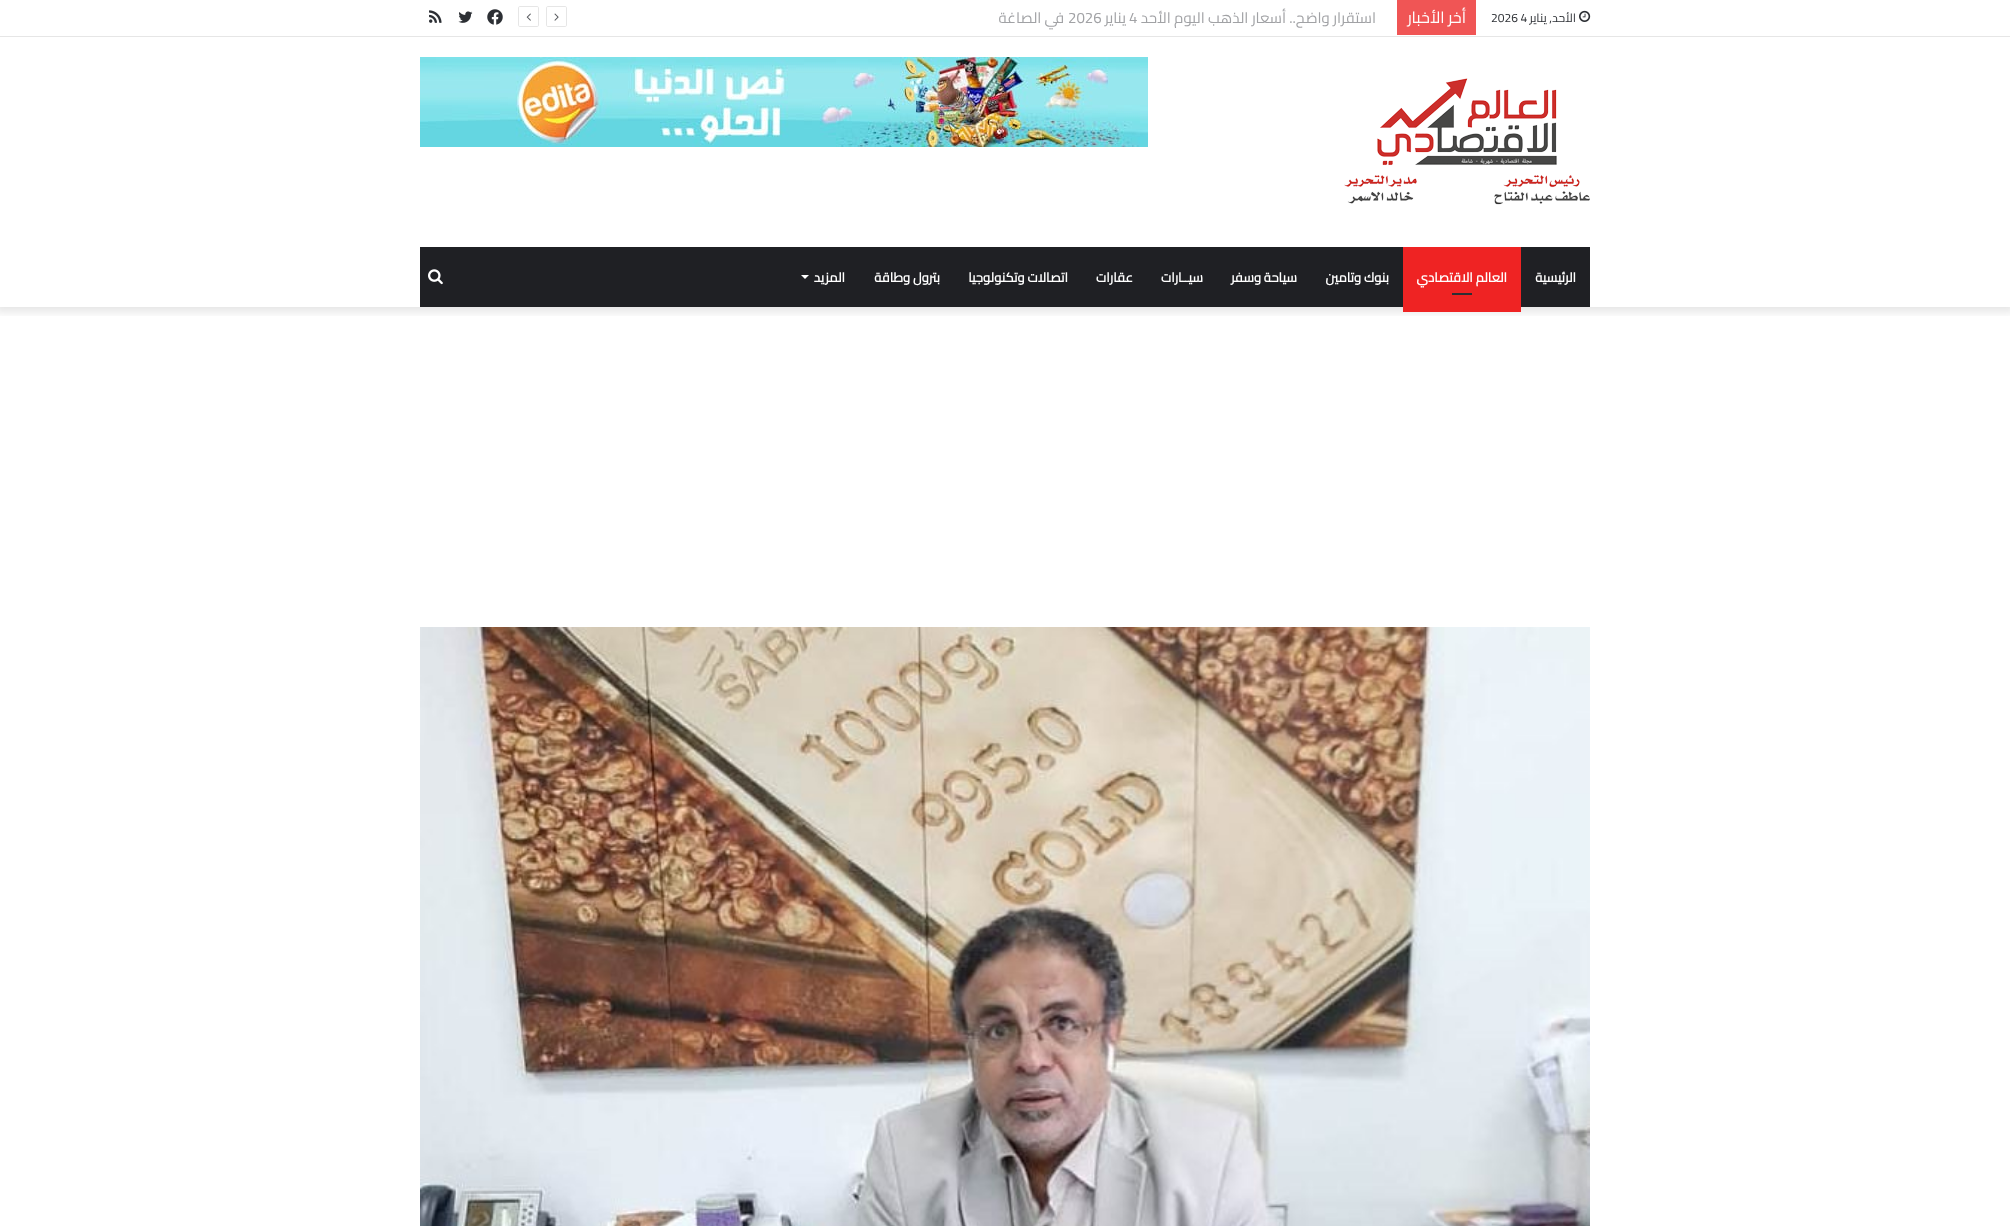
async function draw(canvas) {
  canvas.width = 2010;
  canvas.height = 1226;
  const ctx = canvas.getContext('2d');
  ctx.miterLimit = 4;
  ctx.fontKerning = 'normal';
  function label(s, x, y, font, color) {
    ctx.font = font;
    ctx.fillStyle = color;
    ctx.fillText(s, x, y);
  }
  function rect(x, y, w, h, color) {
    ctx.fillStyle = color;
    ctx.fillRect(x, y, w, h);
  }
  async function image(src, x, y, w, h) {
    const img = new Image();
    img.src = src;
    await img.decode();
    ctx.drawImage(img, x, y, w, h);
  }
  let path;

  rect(0, 0, 2010, 1226, '#fff');
  ctx.save();
  ctx.beginPath();
  ctx.rect(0, 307, 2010, 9);
  ctx.clip();
  ctx.fillStyle = '#0000001a';
  ctx.filter = 'blur(5px)';
  ctx.beginPath();
  ctx.rect(-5, -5, 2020, 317);
  ctx.fill();
  ctx.filter = 'none';
  ctx.restore();
  rect(0, 36, 2010, 1, '#e6e6e6');
  await image('assets/img1.png', 1579, 10, 12, 12);
  ctx.direction = 'rtl';
  label('الأحد, يناير', 1576, 22, '12px Cairo', '#2c2f34');
  ctx.direction = 'ltr';
  label('2026 4', 1491, 22, '12px Cairo', '#2c2f34');
  rect(1397, 0, 79, 35, '#f05555');
  ctx.direction = 'rtl';
  label('أخر الأخبار', 1466, 23, '16px Cairo', '#fff');
  label('استقرار واضح.. أسعار الذهب اليوم الأحد', 1376, 23, '15px Cairo', '#a1a2a5');
  ctx.direction = 'ltr';
  label('4', 1129, 23, '15px Cairo', '#a1a2a5');
  ctx.direction = 'rtl';
  label('يناير', 1126, 23, '15px Cairo', '#a1a2a5');
  ctx.direction = 'ltr';
  label('2026', 1068, 23, '15px Cairo', '#a1a2a5');
  ctx.direction = 'rtl';
  label('في الصاغة', 1064, 23, '15px Cairo', '#a1a2a5');
  path = new Path2D('M565 26.5H548C547 26.5 546.5 26 546.5 25V8C546.5 7 547 6.5 548 6.5H565C566 6.5 566.5 7 566.5 8V25C566.5 26 566 26.5 565 26.5Z');
  ctx.strokeStyle = '#e6e6e6';
  ctx.stroke(path);
  await image('assets/img2.png', 554, 13, 5, 8);
  path = new Path2D('M537 26.5H520C519 26.5 518.5 26 518.5 25V8C518.5 7 519 6.5 520 6.5H537C538 6.5 538.5 7 538.5 8V25C538.5 26 538 26.5 537 26.5Z');
  ctx.stroke(path);
  await image('assets/img3.png', 526, 13, 5, 8);
  await image('assets/img4.png', 487, 9, 16, 16);
  await image('assets/img5.png', 458, 11, 15, 12);
  await image('assets/img6.png', 429, 10, 13, 13);
  await image('assets/img7.png', 1344, 78, 246, 127);
  await image('assets/img8.png', 420, 57, 728, 90);
  rect(420, 247, 1170, 60, '#1f2024');
  label('الرئيسية', 1576, 282, 'bold 13px Cairo', '#fff');
  rect(1403, 247, 118, 65, '#ef2323');
  label('العالم الاقتصادي', 1507, 282, 'bold 13px Cairo', '#fff');
  rect(1452, 293, 20, 2, '#2c2f34');
  label('بنوك وتامين', 1389, 282, 'bold 13px Cairo', '#fff');
  label('سياحة وسفر', 1297, 282, 'bold 13px Cairo', '#fff');
  label('سيــارات', 1203, 282, 'bold 13px Cairo', '#fff');
  label('عقارات', 1133, 282, 'bold 13px Cairo', '#fff');
  label('اتصالات وتكنولوجيا', 1068, 282, 'bold 13px Cairo', '#fff');
  label('بترول وطاقة', 940, 282, 'bold 13px Cairo', '#fff');
  label('المزيد', 845, 282, 'bold 13px Cairo', '#fff');
  path = new Path2D('M801 275H809L805 279Z');
  ctx.fill(path);
  await image('assets/img9.png', 428, 269, 15, 16);
  await image('assets/img10.png', 420, 627, 1170, 599);
}

draw(document.querySelector('canvas'));
